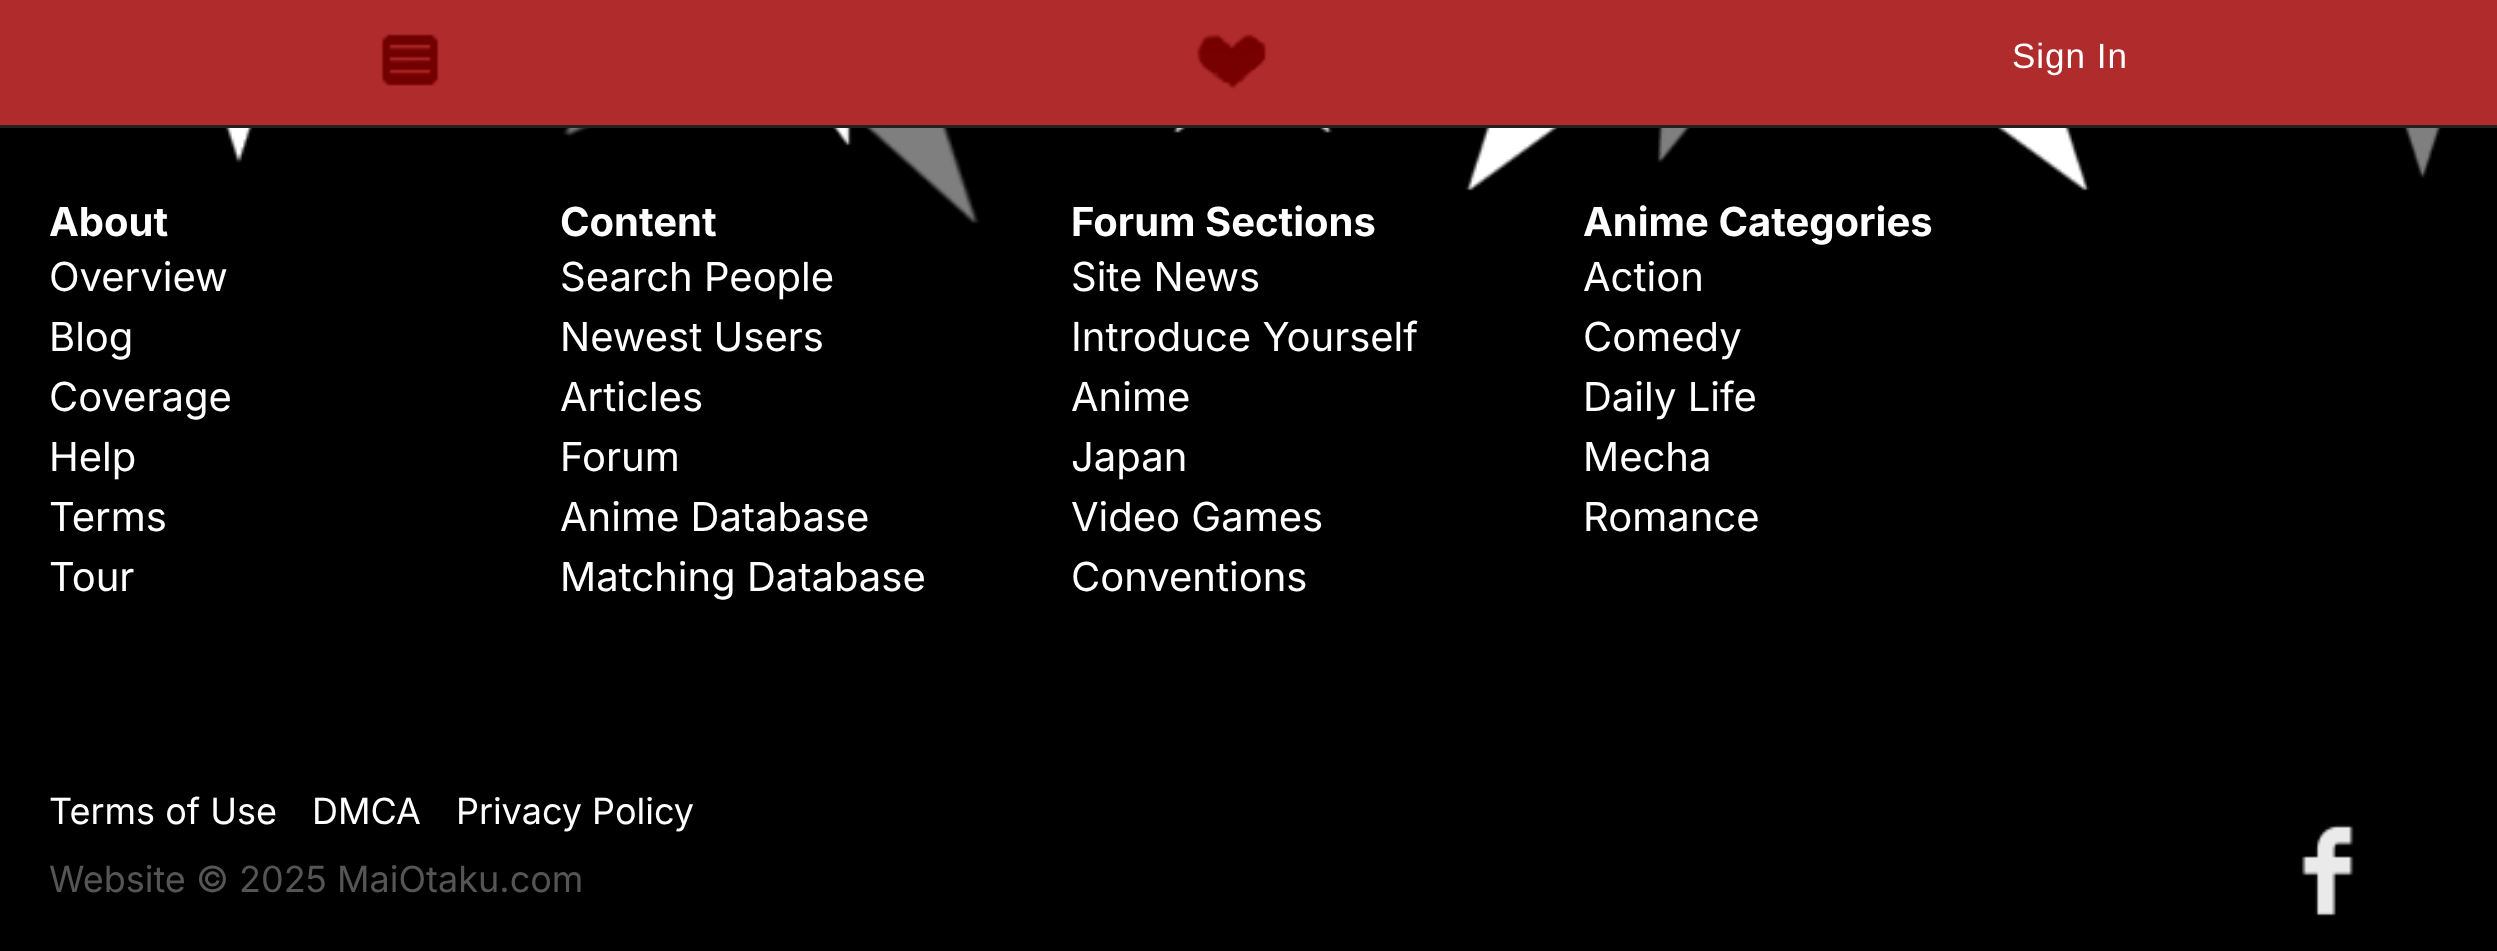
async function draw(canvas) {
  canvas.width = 2497;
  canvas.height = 951;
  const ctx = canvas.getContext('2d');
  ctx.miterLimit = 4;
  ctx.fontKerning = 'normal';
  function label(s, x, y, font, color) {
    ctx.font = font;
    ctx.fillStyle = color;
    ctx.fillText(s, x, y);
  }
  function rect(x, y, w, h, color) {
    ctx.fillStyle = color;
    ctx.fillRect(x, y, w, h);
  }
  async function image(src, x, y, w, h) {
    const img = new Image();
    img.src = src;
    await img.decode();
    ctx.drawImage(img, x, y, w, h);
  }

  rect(0, 0, 2497, 951, '#000');
  rect(0, 0, 2497, 125, '#b02b2c');
  rect(0, 125, 2497, 3, '#222');
  await image('assets/img1.png', 381, 34, 58, 52);
  await image('assets/img2.png', 1196, 34, 71, 55);
  ctx.letterSpacing = '1px';
  label('Sign In', 2012, 68, '35px Liberation Sans', '#fff');
  await image('assets/img3.png', 0, 128, 2482, 96);
  ctx.letterSpacing = '0px';
  label('About', 49, 236, 'bold 40px Inter', '#fff');
  label('Overview', 49, 291, '40px Inter', '#fff');
  label('Blog', 49, 351, '40px Inter', '#fff');
  label('Coverage', 49, 411, '40px Inter', '#fff');
  label('Help', 49, 471, '40px Inter', '#fff');
  label('Terms', 49, 531, '40px Inter', '#fff');
  label('Tour', 49, 591, '40px Inter', '#fff');
  label('Content', 560, 236, 'bold 40px Inter', '#fff');
  label('Search People', 560, 291, '40px Inter', '#fff');
  label('Newest Users', 560, 351, '40px Inter', '#fff');
  label('Articles', 560, 411, '40px Inter', '#fff');
  label('Forum', 560, 471, '40px Inter', '#fff');
  label('Anime Database', 560, 531, '40px Inter', '#fff');
  label('Matching Database', 560, 591, '40px Inter', '#fff');
  label('Forum Sections', 1071, 236, 'bold 40px Inter', '#fff');
  label('Site News', 1071, 291, '40px Inter', '#fff');
  label('Introduce Yourself', 1071, 351, '40px Inter', '#fff');
  label('Anime', 1071, 411, '40px Inter', '#fff');
  label('Japan', 1071, 471, '40px Inter', '#fff');
  label('Video Games', 1071, 531, '40px Inter', '#fff');
  label('Conventions', 1071, 591, '40px Inter', '#fff');
  label('Anime Categories', 1583, 236, 'bold 40px Inter', '#fff');
  label('Action', 1583, 291, '40px Inter', '#fff');
  label('Comedy', 1583, 351, '40px Inter', '#fff');
  label('Daily Life', 1583, 411, '40px Inter', '#fff');
  label('Mecha', 1583, 471, '40px Inter', '#fff');
  label('Romance', 1583, 531, '40px Inter', '#fff');
  label('Terms of Use', 49, 824, '36px Inter', '#fff');
  label('DMCA', 312, 824, '36px Inter', '#fff');
  label('Privacy Policy', 456, 824, '36px Inter', '#fff');
  label('Website © 2025 MaiOtaku.com', 49, 892, '36px Inter', '#555');
  await image('assets/img4.png', 2301, 824, 53, 92);
}

draw(document.querySelector('canvas'));
